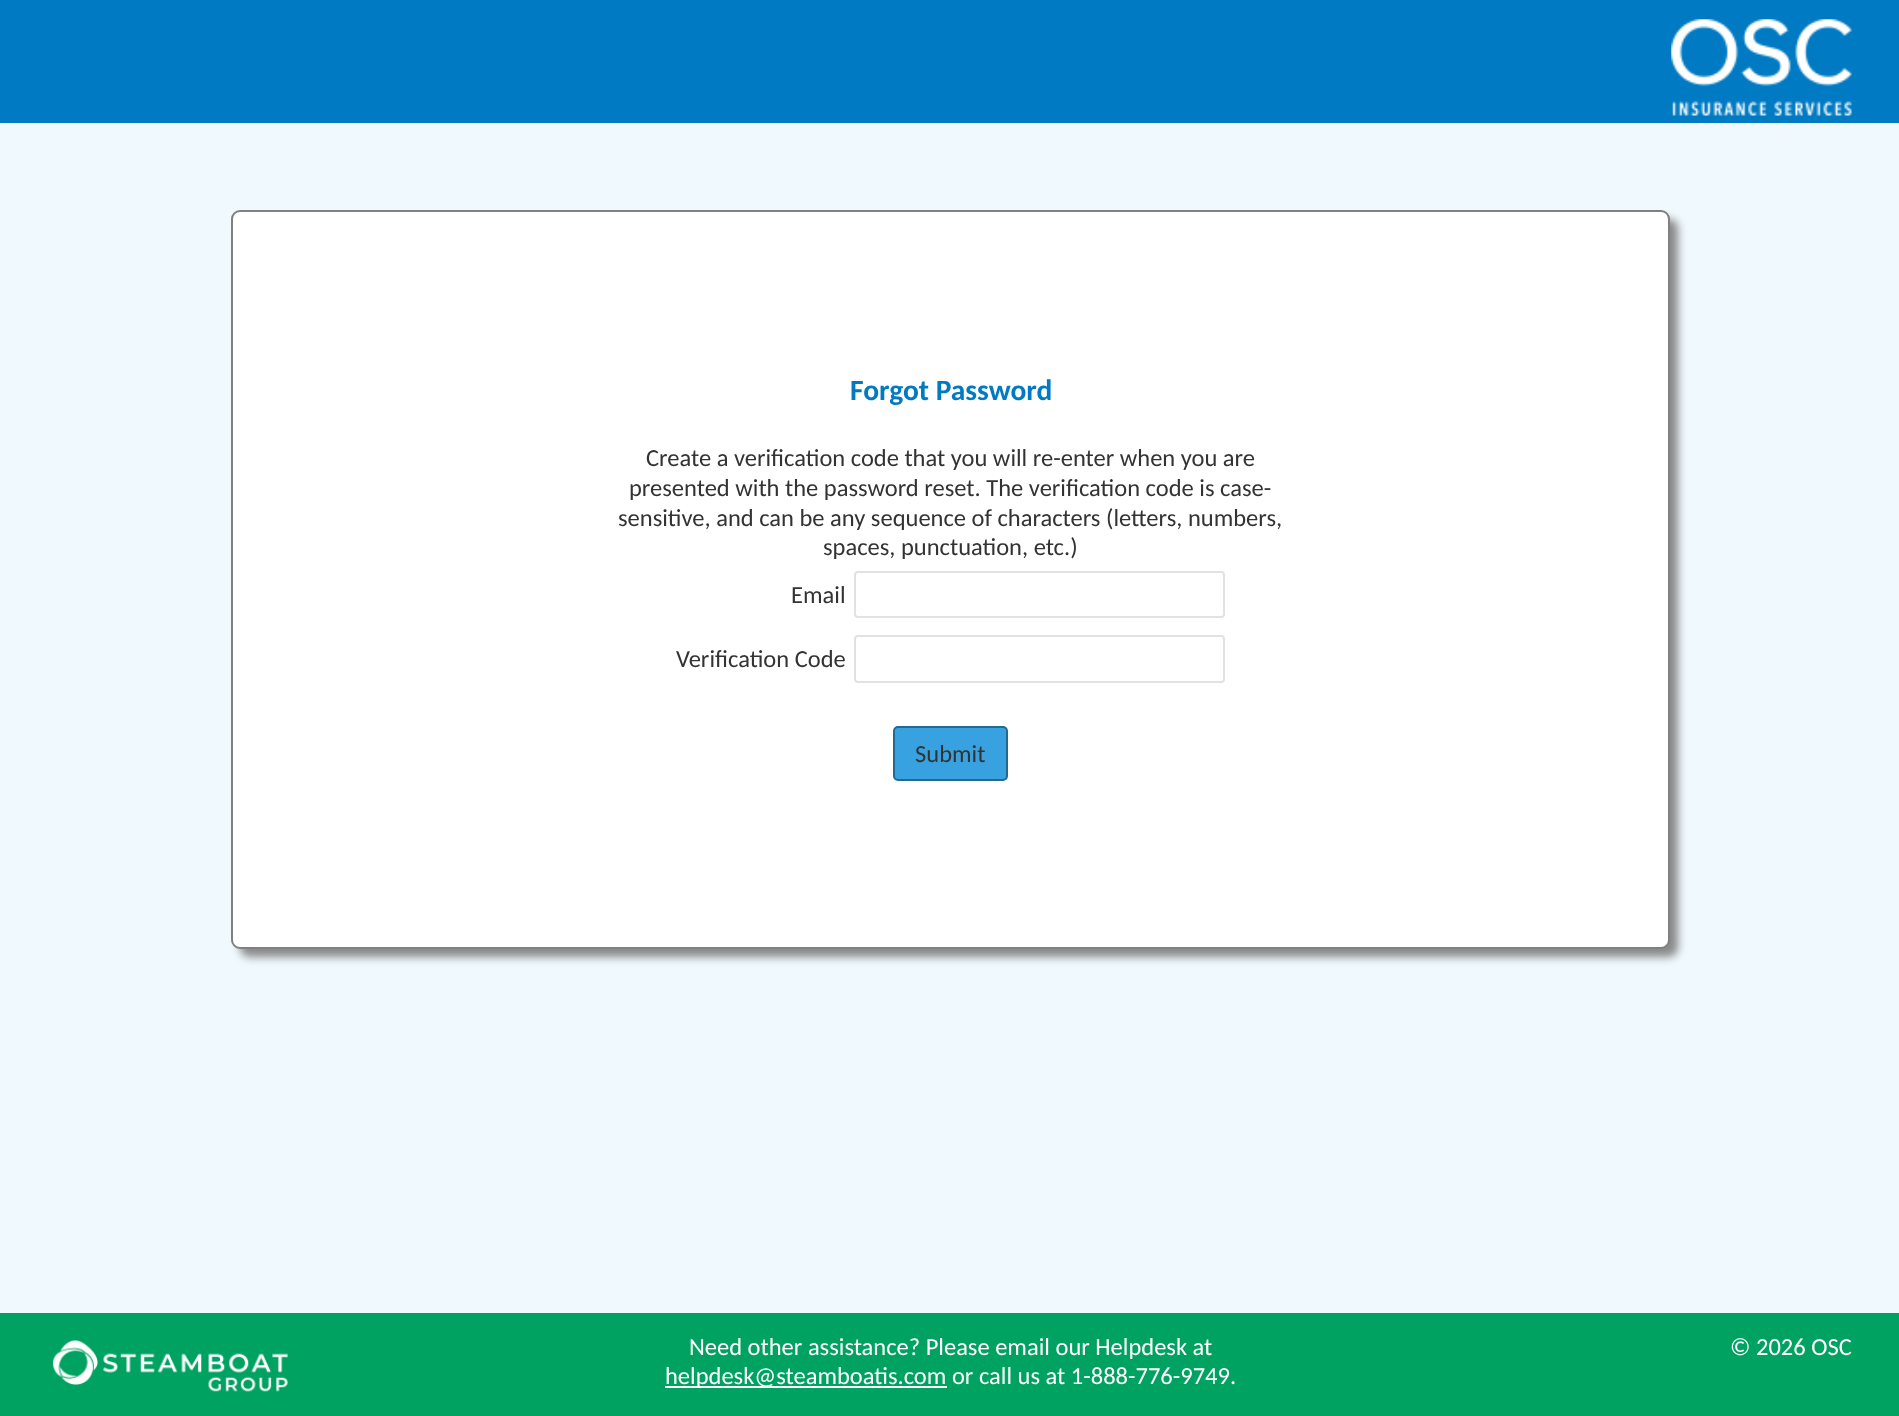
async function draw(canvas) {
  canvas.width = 1899;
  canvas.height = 1416;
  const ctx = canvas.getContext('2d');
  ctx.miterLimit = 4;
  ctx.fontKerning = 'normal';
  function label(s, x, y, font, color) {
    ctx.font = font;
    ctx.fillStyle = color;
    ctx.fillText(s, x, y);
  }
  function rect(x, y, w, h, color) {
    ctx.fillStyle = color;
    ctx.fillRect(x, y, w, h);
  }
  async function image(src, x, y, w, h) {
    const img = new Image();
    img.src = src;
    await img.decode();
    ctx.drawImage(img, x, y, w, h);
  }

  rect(0, 0, 1899, 1416, '#f0f9fe');
  rect(0, 0, 1899, 123, '#007ac2');
  await image('assets/img1.png', 1671, 19, 181, 97);
  ctx.fillStyle = '#888';
  ctx.filter = 'blur(4.5px)';
  ctx.beginPath();
  ctx.roundRect(240, 219, 1438, 738, 9);
  ctx.fill();
  ctx.filter = 'none';
  ctx.fillStyle = '#fff';
  ctx.beginPath();
  ctx.roundRect(232, 211, 1437, 737, 8);
  ctx.fill();
  ctx.strokeStyle = '#808080';
  ctx.lineWidth = 2;
  ctx.stroke();
  label('Forgot Password', 850, 400, 'bold 29.5px Carlito', '#007ac2');
  label('Create a verification code that you will re-enter when you are', 646, 466, '24.5px Carlito', '#333');
  label('presented with the password reset. The verification code is case-', 629, 496, '24.5px Carlito', '#333');
  label('sensitive, and can be any sequence of characters (letters, numbers,', 618, 526, '24.5px Carlito', '#333');
  label('spaces, punctuation, etc.)', 823, 555, '24.5px Carlito', '#333');
  label('Email', 791, 603, '24.5px Carlito', '#333');
  ctx.beginPath();
  ctx.roundRect(855, 572, 369, 45, 3);
  ctx.strokeStyle = '#e2e2e2';
  ctx.stroke();
  label('Verification Code', 676, 667, '24.5px Carlito', '#333');
  ctx.beginPath();
  ctx.roundRect(855, 636, 369, 46, 3);
  ctx.stroke();
  ctx.fillStyle = '#38a2e1';
  ctx.beginPath();
  ctx.roundRect(894, 727, 113, 53, 4);
  ctx.fill();
  ctx.strokeStyle = '#246992';
  ctx.stroke();
  label('Submit', 915, 762, '24.5px Carlito', '#333');
  rect(0, 1313, 1899, 103, '#00a261');
  await image('assets/img2.png', 52, 1340, 236, 52);
  label('Need other assistance? Please email our Helpdesk at', 689, 1355, '24.5px Carlito', '#fff');
  rect(665, 1386, 282, 2, '#fff');
  label('helpdesk@steamboatis.com or call us at 1-888-776-9749.', 665, 1384, '24.5px Carlito', '#fff');
  label('© 2026 OSC', 1730, 1355, '24.5px Carlito', '#fff');
}

draw(document.querySelector('canvas'));
